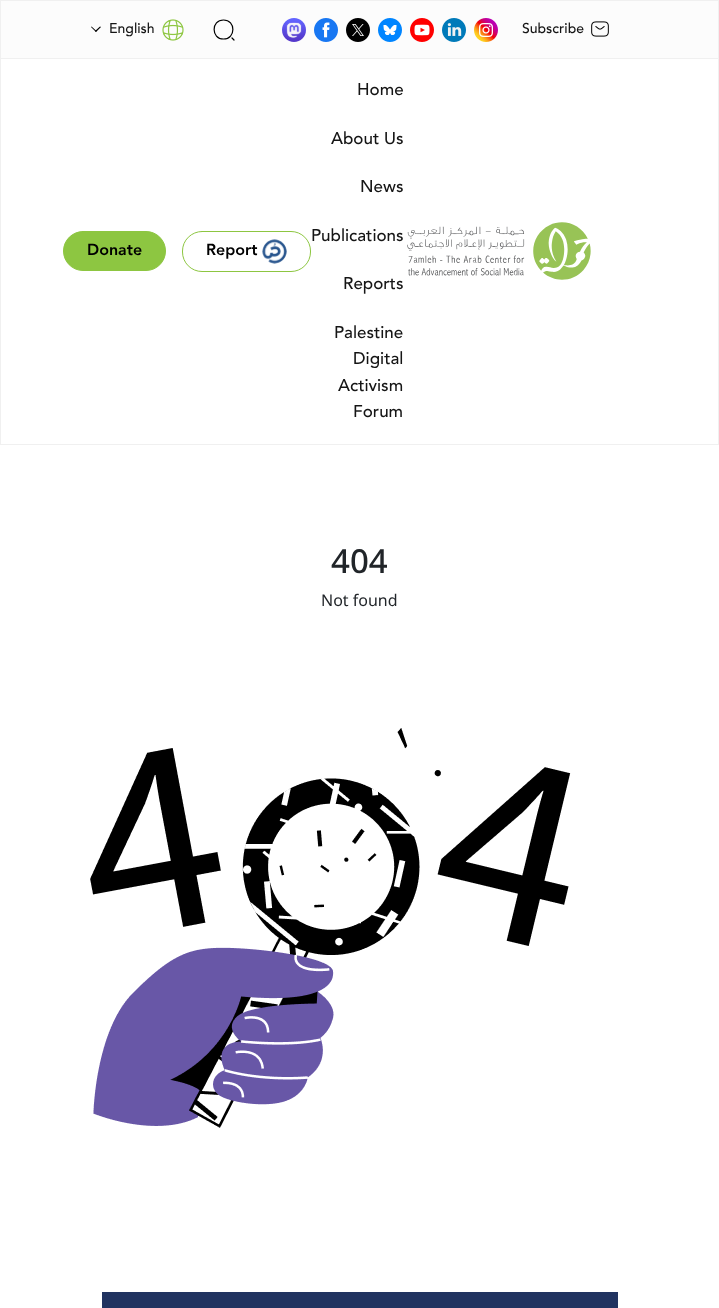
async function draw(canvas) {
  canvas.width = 719;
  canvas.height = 1308;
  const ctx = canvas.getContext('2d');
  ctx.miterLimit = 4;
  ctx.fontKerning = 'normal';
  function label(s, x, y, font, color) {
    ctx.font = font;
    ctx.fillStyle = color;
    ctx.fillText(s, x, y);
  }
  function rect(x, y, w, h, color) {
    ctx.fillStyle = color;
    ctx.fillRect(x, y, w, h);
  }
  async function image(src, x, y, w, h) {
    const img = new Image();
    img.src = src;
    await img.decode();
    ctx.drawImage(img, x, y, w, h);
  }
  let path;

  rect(0, 0, 719, 1308, '#fff');
  ctx.strokeStyle = '#f0f0f0';
  ctx.strokeRect(0.5, 0.5, 718, 444);
  rect(1, 1, 717, 57, '#fcfcfc');
  rect(1, 58, 717, 1, '#f0f0f0');
  ctx.fillStyle = '#000';
  path = new Path2D('M96 32L91 27L91.5 26.5L96.5 31Z');
  ctx.fill(path);
  path = new Path2D('M96 32L95 31L100 26.5L101 27Z');
  ctx.fill(path);
  label('English', 109, 33, '500 14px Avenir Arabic', '#151515');
  await image('assets/img1.png', 162, 19, 22, 22);
  path = new Path2D('M223.5 39C236 39 236 20 223.5 20C211 20 211 39 223.5 39ZM234 40L232 38');
  ctx.strokeStyle = '#000';
  ctx.lineWidth = 1.2;
  ctx.lineCap = 'round';
  ctx.lineJoin = 'round';
  ctx.stroke(path);
  await image('assets/img2.png', 282, 18, 24, 24);
  await image('assets/img3.png', 314, 18, 24, 24);
  await image('assets/img4.png', 346, 18, 24, 24);
  await image('assets/img5.png', 378, 18, 24, 24);
  await image('assets/img6.png', 410, 18, 24, 24);
  await image('assets/img7.png', 442, 18, 24, 24);
  await image('assets/img8.png', 474, 18, 24, 24);
  label('Subscribe', 522, 33, '500 14px Avenir Arabic', '#151515');
  await image('assets/img9.png', 591, 21, 18, 16);
  ctx.fillStyle = '#8dc641';
  ctx.beginPath();
  ctx.roundRect(63.5, 231.5, 102, 39, 19.5);
  ctx.fill();
  ctx.strokeStyle = '#8dc641';
  ctx.lineWidth = 1;
  ctx.lineJoin = 'miter';
  ctx.stroke();
  label('Donate', 87, 255, '900 16px Avenir Arabic', '#000');
  ctx.beginPath();
  ctx.roundRect(182.5, 231.5, 128, 40, 19.5);
  ctx.stroke();
  label('Report', 206, 255, '900 16px Avenir Arabic', '#000');
  await image('assets/img10.png', 262, 239, 25, 25);
  label('Home', 357, 95, '500 17px Avenir Arabic', '#151515');
  label('About Us', 331, 144, '500 17px Avenir Arabic', '#151515');
  label('News', 360, 192, '500 17px Avenir Arabic', '#151515');
  label('Publications', 311, 241, '500 17px Avenir Arabic', '#151515');
  label('Reports', 343, 289, '500 17px Avenir Arabic', '#151515');
  label('Palestine', 334, 338, '500 17px Avenir Arabic', '#151515');
  label('Digital', 353, 364, '500 17px Avenir Arabic', '#151515');
  label('Activism', 338, 391, '500 17px Avenir Arabic', '#151515');
  label('Forum', 353, 417, '500 17px Avenir Arabic', '#151515');
  await image('assets/img11.png', 407, 222, 184, 58);
  label('404', 331, 573, '500 33px Noto Sans', '#212529');
  label('Not found', 321, 606, '16px Noto Sans', '#212529');
  await image('assets/img12.png', 90, 728, 481, 400);
  rect(102, 1292, 516, 16, '#213360');
}

draw(document.querySelector('canvas'));
